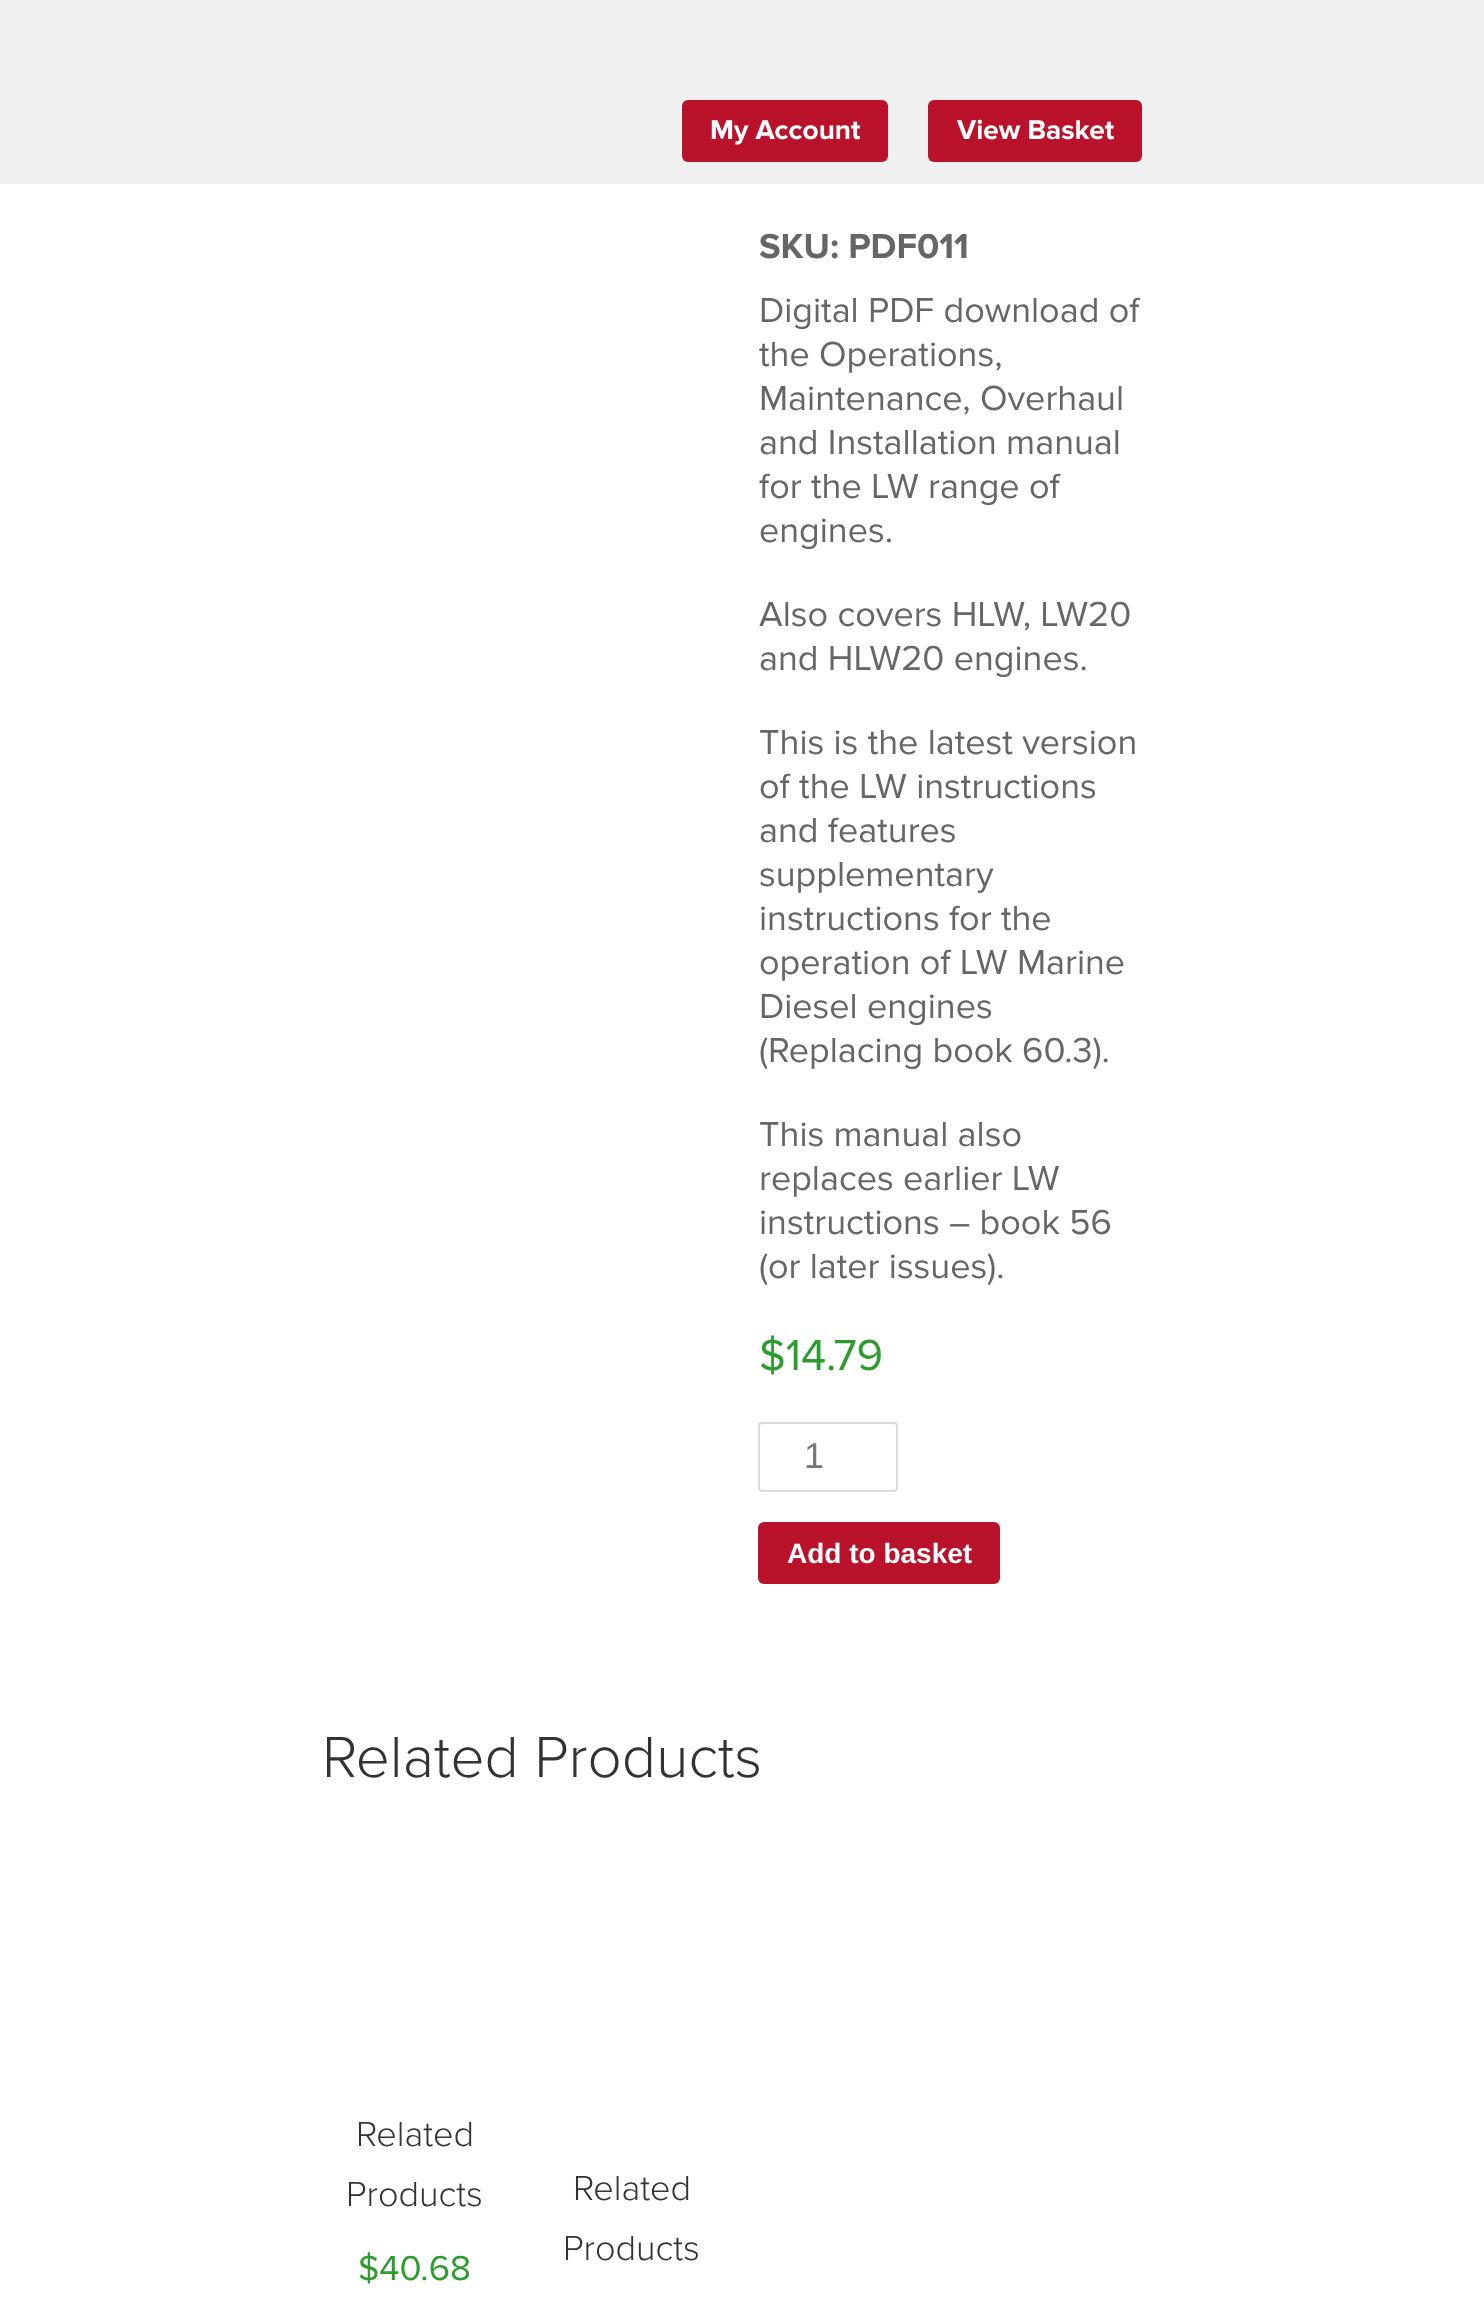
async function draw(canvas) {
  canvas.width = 1484;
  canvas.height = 2323;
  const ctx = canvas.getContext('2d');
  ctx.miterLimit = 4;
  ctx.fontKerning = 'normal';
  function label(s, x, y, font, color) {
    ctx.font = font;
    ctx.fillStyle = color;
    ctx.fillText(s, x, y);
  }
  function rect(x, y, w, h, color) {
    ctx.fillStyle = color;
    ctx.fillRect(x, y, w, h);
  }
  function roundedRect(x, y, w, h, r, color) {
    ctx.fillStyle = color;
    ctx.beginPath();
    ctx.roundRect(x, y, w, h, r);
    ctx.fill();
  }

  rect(0, 0, 1484, 2323, '#fff');
  rect(0, 0, 1484, 184, '#f0f0f0');
  roundedRect(682, 100, 206, 62, 6, '#ba122b');
  label('My Account', 710, 139, 'bold 28px Proxima Nova', '#fff');
  roundedRect(928, 100, 214, 62, 6, '#ba122b');
  label('View Basket', 957, 139, 'bold 28px Proxima Nova', '#fff');
  label('SKU: PDF011', 759, 258, 'bold 36px Proxima Nova', '#666');
  label('Digital PDF download of', 759, 322, '36px Proxima Nova', '#666');
  label('the Operations,', 759, 366, '36px Proxima Nova', '#666');
  label('Maintenance, Overhaul', 759, 410, '36px Proxima Nova', '#666');
  label('and Installation manual', 759, 454, '36px Proxima Nova', '#666');
  label('for the LW range of', 759, 498, '36px Proxima Nova', '#666');
  label('engines.', 759, 542, '36px Proxima Nova', '#666');
  label('Also covers HLW, LW20', 759, 626, '36px Proxima Nova', '#666');
  label('and HLW20 engines.', 759, 670, '36px Proxima Nova', '#666');
  label('This is the latest version', 759, 754, '36px Proxima Nova', '#666');
  label('of the LW instructions', 759, 798, '36px Proxima Nova', '#666');
  label('and features', 759, 842, '36px Proxima Nova', '#666');
  label('supplementary', 759, 886, '36px Proxima Nova', '#666');
  label('instructions for the', 759, 930, '36px Proxima Nova', '#666');
  label('operation of LW Marine', 759, 974, '36px Proxima Nova', '#666');
  label('Diesel engines', 759, 1018, '36px Proxima Nova', '#666');
  label('(Replacing book 60.3).', 759, 1062, '36px Proxima Nova', '#666');
  label('This manual also', 759, 1146, '36px Proxima Nova', '#666');
  label('replaces earlier LW', 759, 1190, '36px Proxima Nova', '#666');
  label('instructions – book 56', 759, 1234, '36px Proxima Nova', '#666');
  label('(or later issues).', 759, 1278, '36px Proxima Nova', '#666');
  label('$14.79', 759, 1370, '45px Proxima Nova', '#2c9d2d');
  ctx.beginPath();
  ctx.roundRect(759, 1423, 138, 68, 3);
  ctx.strokeStyle = '#dbdbdb';
  ctx.lineWidth = 2;
  ctx.stroke();
  label('1', 804, 1468, '36px Liberation Sans', '#777');
  roundedRect(758, 1522, 242, 62, 6, '#ba122b');
  label('Add to basket', 787, 1563, 'bold 28px Liberation Sans', '#fff');
  label('Related Products', 322, 1777, '300 60px Proxima Nova', '#333');
  label('Related', 356, 2146, '300 36px Proxima Nova', '#333');
  label('Products', 346, 2206, '300 36px Proxima Nova', '#333');
  label('$40.68', 358, 2280, '36px Proxima Nova', '#2c9d2d');
  label('Related', 573, 2200, '300 36px Proxima Nova', '#333');
  label('Products', 563, 2260, '300 36px Proxima Nova', '#333');
}

draw(document.querySelector('canvas'));
